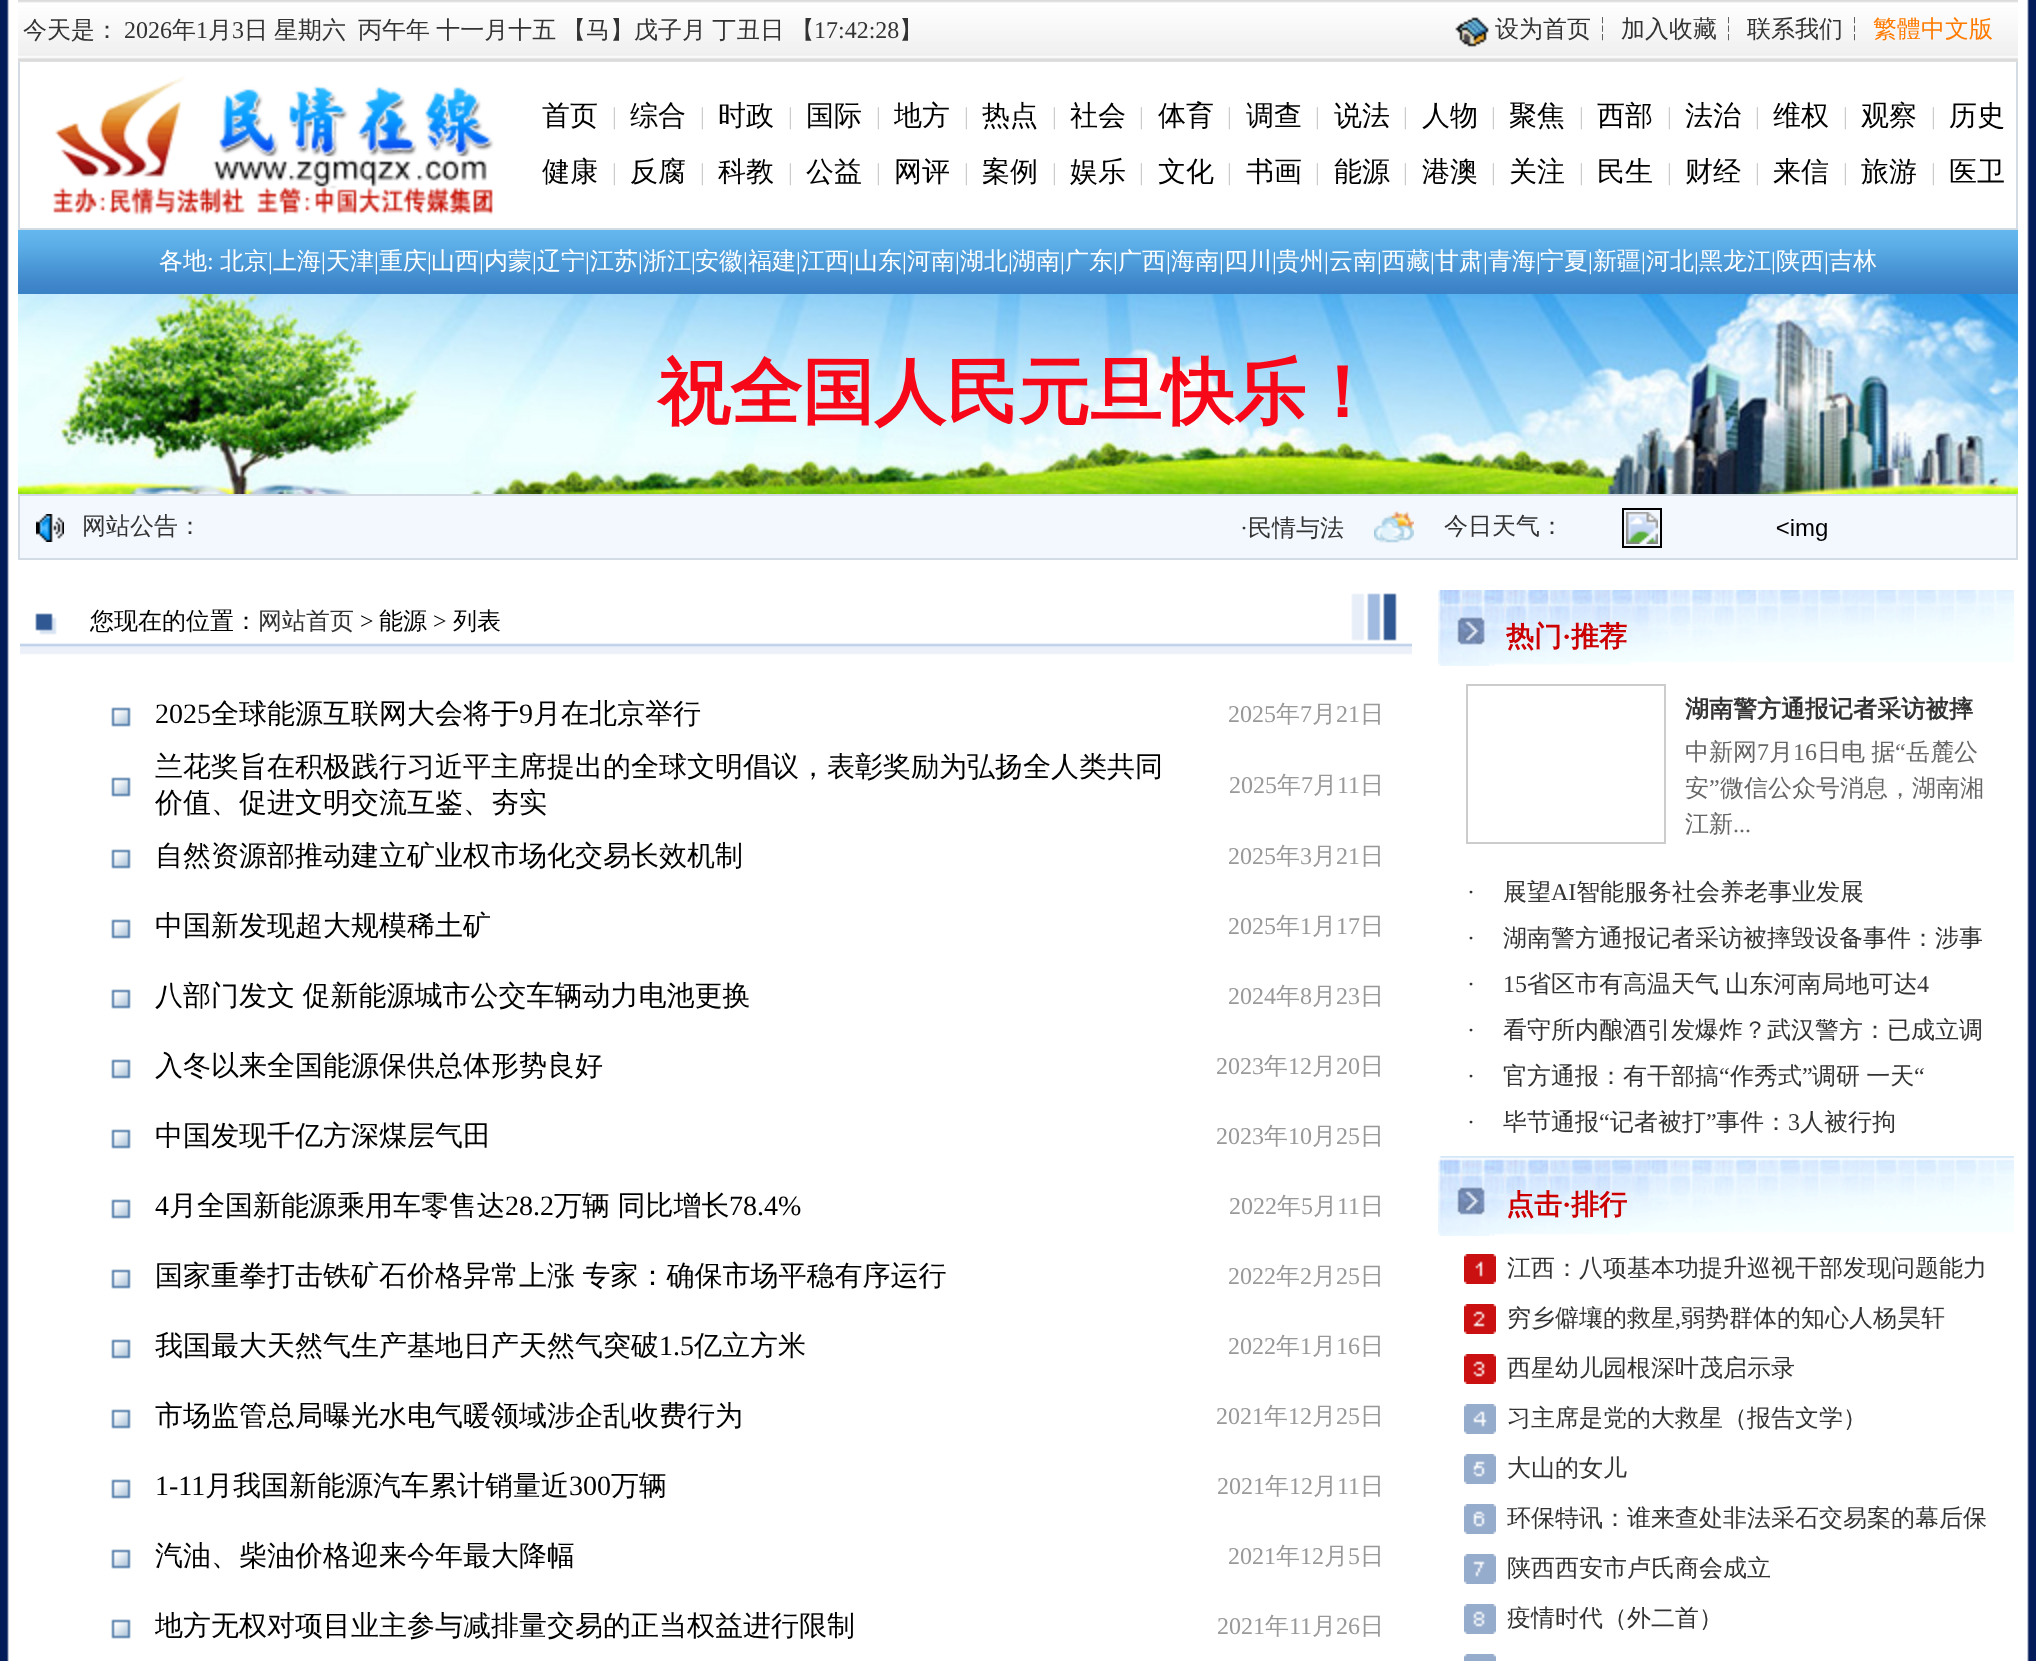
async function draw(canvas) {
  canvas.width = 2036;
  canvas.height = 1661;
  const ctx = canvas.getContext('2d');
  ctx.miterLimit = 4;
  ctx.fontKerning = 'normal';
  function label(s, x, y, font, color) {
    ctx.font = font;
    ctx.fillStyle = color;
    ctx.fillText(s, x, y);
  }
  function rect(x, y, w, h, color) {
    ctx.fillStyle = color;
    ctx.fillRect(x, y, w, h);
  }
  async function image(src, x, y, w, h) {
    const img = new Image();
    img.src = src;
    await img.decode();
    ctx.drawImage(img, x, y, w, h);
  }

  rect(0, 0, 2036, 1661, '#fff');
  await image('assets/img1.png', 0, 0, 2036, 1661);
  await image('assets/img2.png', 18, 0, 2000, 62);
  label('今天是：', 23, 38, '500 24px WenQuanYi Zen Hei', '#333');
  label('2026', 124, 38, '24px Liberation Serif', '#333');
  label('年', 172, 38, '500 24px WenQuanYi Zen Hei', '#333');
  label('1', 196, 38, '24px Liberation Serif', '#333');
  label('月', 208, 38, '500 24px WenQuanYi Zen Hei', '#333');
  label('3', 232, 38, '24px Liberation Serif', '#333');
  label('日', 244, 38, '500 24px WenQuanYi Zen Hei', '#333');
  label('星期六', 274, 38, '500 24px WenQuanYi Zen Hei', '#333');
  ctx.wordSpacing = '-1px';
  label('丙午年 十一月十五', 358, 38, '500 24px WenQuanYi Zen Hei', '#333');
  label('【马】戊子月 丁丑日 【', 562, 38, '500 24px WenQuanYi Zen Hei', '#333');
  ctx.wordSpacing = '0px';
  label('17:42:28', 814, 38, '24px Liberation Serif', '#333');
  label('】', 899, 38, '500 24px WenQuanYi Zen Hei', '#333');
  await image('assets/img3.png', 1455, 17, 34, 30);
  label('设为首页┆', 1495, 37, '500 24px WenQuanYi Zen Hei', '#333');
  label('加入收藏┆', 1621, 37, '500 24px WenQuanYi Zen Hei', '#333');
  label('联系我们┆', 1747, 37, '500 24px WenQuanYi Zen Hei', '#333');
  label('繁體中文版', 1873, 37, '500 24px WenQuanYi Zen Hei', '#ff7b00');
  rect(2016, 62, 2, 168, '#d3dce5');
  rect(18, 228, 2000, 2, '#d3dce5');
  rect(18, 62, 2, 168, '#d3dce5');
  await image('assets/img4.png', 53, 76, 441, 139);
  label('首页', 542, 125, '500 28px WenQuanYi Zen Hei', '#000');
  label('|', 612, 124, '24px Liberation Serif', '#ccc');
  label('综合', 630, 125, '500 28px WenQuanYi Zen Hei', '#000');
  label('|', 700, 124, '24px Liberation Serif', '#ccc');
  label('时政', 718, 125, '500 28px WenQuanYi Zen Hei', '#000');
  label('|', 788, 124, '24px Liberation Serif', '#ccc');
  label('国际', 806, 125, '500 28px WenQuanYi Zen Hei', '#000');
  label('|', 876, 124, '24px Liberation Serif', '#ccc');
  label('地方', 894, 125, '500 28px WenQuanYi Zen Hei', '#000');
  label('|', 964, 124, '24px Liberation Serif', '#ccc');
  label('热点', 982, 125, '500 28px WenQuanYi Zen Hei', '#000');
  label('|', 1052, 124, '24px Liberation Serif', '#ccc');
  label('社会', 1070, 125, '500 28px WenQuanYi Zen Hei', '#000');
  label('|', 1139, 124, '24px Liberation Serif', '#ccc');
  label('体育', 1158, 125, '500 28px WenQuanYi Zen Hei', '#000');
  label('|', 1227, 124, '24px Liberation Serif', '#ccc');
  label('调查', 1246, 125, '500 28px WenQuanYi Zen Hei', '#000');
  label('|', 1315, 124, '24px Liberation Serif', '#ccc');
  label('说法', 1334, 125, '500 28px WenQuanYi Zen Hei', '#000');
  label('|', 1403, 124, '24px Liberation Serif', '#ccc');
  label('人物', 1422, 125, '500 28px WenQuanYi Zen Hei', '#000');
  label('|', 1491, 124, '24px Liberation Serif', '#ccc');
  label('聚焦', 1509, 125, '500 28px WenQuanYi Zen Hei', '#000');
  label('|', 1579, 124, '24px Liberation Serif', '#ccc');
  label('西部', 1597, 125, '500 28px WenQuanYi Zen Hei', '#000');
  label('|', 1667, 124, '24px Liberation Serif', '#ccc');
  label('法治', 1685, 125, '500 28px WenQuanYi Zen Hei', '#000');
  label('|', 1755, 124, '24px Liberation Serif', '#ccc');
  label('维权', 1773, 125, '500 28px WenQuanYi Zen Hei', '#000');
  label('|', 1843, 124, '24px Liberation Serif', '#ccc');
  label('观察', 1861, 125, '500 28px WenQuanYi Zen Hei', '#000');
  label('|', 1931, 124, '24px Liberation Serif', '#ccc');
  label('历史', 1949, 125, '500 28px WenQuanYi Zen Hei', '#000');
  label('健康', 542, 181, '500 28px WenQuanYi Zen Hei', '#000');
  label('|', 612, 180, '24px Liberation Serif', '#ccc');
  label('反腐', 630, 181, '500 28px WenQuanYi Zen Hei', '#000');
  label('|', 700, 180, '24px Liberation Serif', '#ccc');
  label('科教', 718, 181, '500 28px WenQuanYi Zen Hei', '#000');
  label('|', 788, 180, '24px Liberation Serif', '#ccc');
  label('公益', 806, 181, '500 28px WenQuanYi Zen Hei', '#000');
  label('|', 876, 180, '24px Liberation Serif', '#ccc');
  label('网评', 894, 181, '500 28px WenQuanYi Zen Hei', '#000');
  label('|', 964, 180, '24px Liberation Serif', '#ccc');
  label('案例', 982, 181, '500 28px WenQuanYi Zen Hei', '#000');
  label('|', 1052, 180, '24px Liberation Serif', '#ccc');
  label('娱乐', 1070, 181, '500 28px WenQuanYi Zen Hei', '#000');
  label('|', 1139, 180, '24px Liberation Serif', '#ccc');
  label('文化', 1158, 181, '500 28px WenQuanYi Zen Hei', '#000');
  label('|', 1227, 180, '24px Liberation Serif', '#ccc');
  label('书画', 1246, 181, '500 28px WenQuanYi Zen Hei', '#000');
  label('|', 1315, 180, '24px Liberation Serif', '#ccc');
  label('能源', 1334, 181, '500 28px WenQuanYi Zen Hei', '#000');
  label('|', 1403, 180, '24px Liberation Serif', '#ccc');
  label('港澳', 1422, 181, '500 28px WenQuanYi Zen Hei', '#000');
  label('|', 1491, 180, '24px Liberation Serif', '#ccc');
  label('关注', 1509, 181, '500 28px WenQuanYi Zen Hei', '#000');
  label('|', 1579, 180, '24px Liberation Serif', '#ccc');
  label('民生', 1597, 181, '500 28px WenQuanYi Zen Hei', '#000');
  label('|', 1667, 180, '24px Liberation Serif', '#ccc');
  label('财经', 1685, 181, '500 28px WenQuanYi Zen Hei', '#000');
  label('|', 1755, 180, '24px Liberation Serif', '#ccc');
  label('来信', 1773, 181, '500 28px WenQuanYi Zen Hei', '#000');
  label('|', 1843, 180, '24px Liberation Serif', '#ccc');
  label('旅游', 1861, 181, '500 28px WenQuanYi Zen Hei', '#000');
  label('|', 1931, 180, '24px Liberation Serif', '#ccc');
  label('医卫', 1949, 181, '500 28px WenQuanYi Zen Hei', '#000');
  await image('assets/img5.png', 18, 230, 2000, 64);
  label('各地', 159, 269, '500 24px WenQuanYi Zen Hei', '#fff');
  label(':', 207, 269, '24px Liberation Serif', '#fff');
  label('北京', 220, 269, '500 24px WenQuanYi Zen Hei', '#fff');
  label('|', 268, 269, '24px Liberation Serif', '#fff');
  label('上海', 273, 269, '500 24px WenQuanYi Zen Hei', '#fff');
  label('|', 321, 269, '24px Liberation Serif', '#fff');
  label('天津', 326, 269, '500 24px WenQuanYi Zen Hei', '#fff');
  label('|', 374, 269, '24px Liberation Serif', '#fff');
  label('重庆', 379, 269, '500 24px WenQuanYi Zen Hei', '#fff');
  label('|', 427, 269, '24px Liberation Serif', '#fff');
  label('山西', 431, 269, '500 24px WenQuanYi Zen Hei', '#fff');
  label('|', 479, 269, '24px Liberation Serif', '#fff');
  label('内蒙', 484, 269, '500 24px WenQuanYi Zen Hei', '#fff');
  label('|', 532, 269, '24px Liberation Serif', '#fff');
  label('辽宁', 537, 269, '500 24px WenQuanYi Zen Hei', '#fff');
  label('|', 585, 269, '24px Liberation Serif', '#fff');
  label('江苏', 590, 269, '500 24px WenQuanYi Zen Hei', '#fff');
  label('|', 638, 269, '24px Liberation Serif', '#fff');
  label('浙江', 643, 269, '500 24px WenQuanYi Zen Hei', '#fff');
  label('|', 691, 269, '24px Liberation Serif', '#fff');
  label('安徽', 695, 269, '500 24px WenQuanYi Zen Hei', '#fff');
  label('|', 743, 269, '24px Liberation Serif', '#fff');
  label('福建', 748, 269, '500 24px WenQuanYi Zen Hei', '#fff');
  label('|', 796, 269, '24px Liberation Serif', '#fff');
  label('江西', 801, 269, '500 24px WenQuanYi Zen Hei', '#fff');
  label('|', 849, 269, '24px Liberation Serif', '#fff');
  label('山东', 854, 269, '500 24px WenQuanYi Zen Hei', '#fff');
  label('|', 902, 269, '24px Liberation Serif', '#fff');
  label('河南', 907, 269, '500 24px WenQuanYi Zen Hei', '#fff');
  label('|', 955, 269, '24px Liberation Serif', '#fff');
  label('湖北', 960, 269, '500 24px WenQuanYi Zen Hei', '#fff');
  label('|', 1008, 269, '24px Liberation Serif', '#fff');
  label('湖南', 1012, 269, '500 24px WenQuanYi Zen Hei', '#fff');
  label('|', 1060, 269, '24px Liberation Serif', '#fff');
  label('广东', 1065, 269, '500 24px WenQuanYi Zen Hei', '#fff');
  label('|', 1113, 269, '24px Liberation Serif', '#fff');
  label('广西', 1118, 269, '500 24px WenQuanYi Zen Hei', '#fff');
  label('|', 1166, 269, '24px Liberation Serif', '#fff');
  label('海南', 1171, 269, '500 24px WenQuanYi Zen Hei', '#fff');
  label('|', 1219, 269, '24px Liberation Serif', '#fff');
  label('四川', 1224, 269, '500 24px WenQuanYi Zen Hei', '#fff');
  label('|', 1272, 269, '24px Liberation Serif', '#fff');
  label('贵州', 1276, 269, '500 24px WenQuanYi Zen Hei', '#fff');
  label('|', 1324, 269, '24px Liberation Serif', '#fff');
  label('云南', 1329, 269, '500 24px WenQuanYi Zen Hei', '#fff');
  label('|', 1377, 269, '24px Liberation Serif', '#fff');
  label('西藏', 1382, 269, '500 24px WenQuanYi Zen Hei', '#fff');
  label('|', 1430, 269, '24px Liberation Serif', '#fff');
  label('甘肃', 1435, 269, '500 24px WenQuanYi Zen Hei', '#fff');
  label('|', 1483, 269, '24px Liberation Serif', '#fff');
  label('青海', 1488, 269, '500 24px WenQuanYi Zen Hei', '#fff');
  label('|', 1536, 269, '24px Liberation Serif', '#fff');
  label('宁夏', 1540, 269, '500 24px WenQuanYi Zen Hei', '#fff');
  label('|', 1588, 269, '24px Liberation Serif', '#fff');
  label('新疆', 1593, 269, '500 24px WenQuanYi Zen Hei', '#fff');
  label('|', 1641, 269, '24px Liberation Serif', '#fff');
  label('河北', 1646, 269, '500 24px WenQuanYi Zen Hei', '#fff');
  label('|', 1694, 269, '24px Liberation Serif', '#fff');
  label('黑龙江', 1699, 269, '500 24px WenQuanYi Zen Hei', '#fff');
  label('|', 1771, 269, '24px Liberation Serif', '#fff');
  label('陕西', 1776, 269, '500 24px WenQuanYi Zen Hei', '#fff');
  label('|', 1824, 269, '24px Liberation Serif', '#fff');
  label('吉林', 1829, 269, '500 24px WenQuanYi Zen Hei', '#fff');
  await image('assets/img6.png', 18, 294, 2000, 200);
  label('祝全国人民元旦快乐！', 658, 417, 'bold 72px WenQuanYi Zen Hei', '#f60818');
  rect(20, 496, 1996, 62, '#f3f8fe');
  rect(18, 494, 2000, 2, '#d3dce5');
  rect(2016, 494, 2, 66, '#d3dce5');
  rect(18, 558, 2000, 2, '#d3dce5');
  rect(18, 494, 2, 66, '#d3dce5');
  await image('assets/img7.png', 36, 514, 28, 28);
  label('网站公告：', 82, 534, '500 24px WenQuanYi Zen Hei', '#333');
  label('·', 1240, 536, '24px Liberation Serif', '#333');
  label('民情与法', 1248, 536, '500 24px WenQuanYi Zen Hei', '#333');
  await image('assets/img8.png', 1374, 511, 40, 32);
  label('今日天气：', 1444, 534, '500 24px WenQuanYi Zen Hei', '#333');
  await image('assets/img9.png', 1622, 508, 205, 40);
  await image('assets/img10.png', 20, 593, 1392, 62);
  label('您现在的位置：', 90, 629, '500 24px WenQuanYi Zen Hei', '#000');
  label('网站首页', 258, 629, '500 24px WenQuanYi Zen Hei', '#333');
  label('>', 360, 629, '24px Liberation Serif', '#000');
  label('能源', 379, 629, '500 24px WenQuanYi Zen Hei', '#000');
  label('>', 433, 629, '24px Liberation Serif', '#000');
  label('列表', 453, 629, '500 24px WenQuanYi Zen Hei', '#000');
  await image('assets/img11.png', 111, 707, 20, 20);
  label('2025', 155, 723, '28px Liberation Serif', '#000');
  label('全球能源互联网大会将于', 211, 723, '500 28px WenQuanYi Zen Hei', '#000');
  label('9', 519, 723, '28px Liberation Serif', '#000');
  label('月在北京举行', 533, 723, '500 28px WenQuanYi Zen Hei', '#000');
  label('2025', 1228, 722, '24px Liberation Serif', '#999');
  label('年', 1276, 722, '500 24px WenQuanYi Zen Hei', '#999');
  label('7', 1300, 722, '24px Liberation Serif', '#999');
  label('月', 1312, 722, '500 24px WenQuanYi Zen Hei', '#999');
  label('21', 1336, 722, '24px Liberation Serif', '#999');
  label('日', 1360, 722, '500 24px WenQuanYi Zen Hei', '#999');
  await image('assets/img11.png', 111, 777, 20, 20);
  label('兰花奖旨在积极践行习近平主席提出的全球文明倡议，表彰奖励为弘扬全人类共同', 155, 776, '500 28px WenQuanYi Zen Hei', '#000');
  label('价值、促进文明交流互鉴、夯实', 155, 812, '500 28px WenQuanYi Zen Hei', '#000');
  label('2025', 1229, 793, '24px Liberation Serif', '#999');
  label('年', 1277, 793, '500 24px WenQuanYi Zen Hei', '#999');
  label('7', 1301, 793, '24px Liberation Serif', '#999');
  label('月', 1313, 793, '500 24px WenQuanYi Zen Hei', '#999');
  label('11', 1337, 793, '24px Liberation Serif', '#999');
  label('日', 1360, 793, '500 24px WenQuanYi Zen Hei', '#999');
  await image('assets/img11.png', 111, 849, 20, 20);
  label('自然资源部推动建立矿业权市场化交易长效机制', 155, 865, '500 28px WenQuanYi Zen Hei', '#000');
  label('2025', 1228, 864, '24px Liberation Serif', '#999');
  label('年', 1276, 864, '500 24px WenQuanYi Zen Hei', '#999');
  label('3', 1300, 864, '24px Liberation Serif', '#999');
  label('月', 1312, 864, '500 24px WenQuanYi Zen Hei', '#999');
  label('21', 1336, 864, '24px Liberation Serif', '#999');
  label('日', 1360, 864, '500 24px WenQuanYi Zen Hei', '#999');
  await image('assets/img11.png', 111, 919, 20, 20);
  label('中国新发现超大规模稀土矿', 155, 935, '500 28px WenQuanYi Zen Hei', '#000');
  label('2025', 1228, 934, '24px Liberation Serif', '#999');
  label('年', 1276, 934, '500 24px WenQuanYi Zen Hei', '#999');
  label('1', 1300, 934, '24px Liberation Serif', '#999');
  label('月', 1312, 934, '500 24px WenQuanYi Zen Hei', '#999');
  label('17', 1336, 934, '24px Liberation Serif', '#999');
  label('日', 1360, 934, '500 24px WenQuanYi Zen Hei', '#999');
  await image('assets/img11.png', 111, 989, 20, 20);
  ctx.wordSpacing = '-1px';
  label('八部门发文 促新能源城市公交车辆动力电池更换', 155, 1005, '500 28px WenQuanYi Zen Hei', '#000');
  ctx.wordSpacing = '0px';
  label('2024', 1228, 1004, '24px Liberation Serif', '#999');
  label('年', 1276, 1004, '500 24px WenQuanYi Zen Hei', '#999');
  label('8', 1300, 1004, '24px Liberation Serif', '#999');
  label('月', 1312, 1004, '500 24px WenQuanYi Zen Hei', '#999');
  label('23', 1336, 1004, '24px Liberation Serif', '#999');
  label('日', 1360, 1004, '500 24px WenQuanYi Zen Hei', '#999');
  await image('assets/img11.png', 111, 1059, 20, 20);
  label('入冬以来全国能源保供总体形势良好', 155, 1075, '500 28px WenQuanYi Zen Hei', '#000');
  label('2023', 1216, 1074, '24px Liberation Serif', '#999');
  label('年', 1264, 1074, '500 24px WenQuanYi Zen Hei', '#999');
  label('12', 1288, 1074, '24px Liberation Serif', '#999');
  label('月', 1312, 1074, '500 24px WenQuanYi Zen Hei', '#999');
  label('20', 1336, 1074, '24px Liberation Serif', '#999');
  label('日', 1360, 1074, '500 24px WenQuanYi Zen Hei', '#999');
  await image('assets/img11.png', 111, 1129, 20, 20);
  label('中国发现千亿方深煤层气田', 155, 1145, '500 28px WenQuanYi Zen Hei', '#000');
  label('2023', 1216, 1144, '24px Liberation Serif', '#999');
  label('年', 1264, 1144, '500 24px WenQuanYi Zen Hei', '#999');
  label('10', 1288, 1144, '24px Liberation Serif', '#999');
  label('月', 1312, 1144, '500 24px WenQuanYi Zen Hei', '#999');
  label('25', 1336, 1144, '24px Liberation Serif', '#999');
  label('日', 1360, 1144, '500 24px WenQuanYi Zen Hei', '#999');
  await image('assets/img11.png', 111, 1199, 20, 20);
  label('4', 155, 1215, '28px Liberation Serif', '#000');
  label('月全国新能源乘用车零售达', 169, 1215, '500 28px WenQuanYi Zen Hei', '#000');
  label('28.2', 505, 1215, '28px Liberation Serif', '#000');
  ctx.wordSpacing = '-1px';
  label('万辆 同比增长', 554, 1215, '500 28px WenQuanYi Zen Hei', '#000');
  ctx.wordSpacing = '0px';
  label('78.4%', 729, 1215, '28px Liberation Serif', '#000');
  label('2022', 1229, 1214, '24px Liberation Serif', '#999');
  label('年', 1277, 1214, '500 24px WenQuanYi Zen Hei', '#999');
  label('5', 1301, 1214, '24px Liberation Serif', '#999');
  label('月', 1313, 1214, '500 24px WenQuanYi Zen Hei', '#999');
  label('11', 1337, 1214, '24px Liberation Serif', '#999');
  label('日', 1360, 1214, '500 24px WenQuanYi Zen Hei', '#999');
  await image('assets/img11.png', 111, 1269, 20, 20);
  ctx.wordSpacing = '-1px';
  label('国家重拳打击铁矿石价格异常上涨 专家：确保市场平稳有序运行', 155, 1285, '500 28px WenQuanYi Zen Hei', '#000');
  ctx.wordSpacing = '0px';
  label('2022', 1228, 1284, '24px Liberation Serif', '#999');
  label('年', 1276, 1284, '500 24px WenQuanYi Zen Hei', '#999');
  label('2', 1300, 1284, '24px Liberation Serif', '#999');
  label('月', 1312, 1284, '500 24px WenQuanYi Zen Hei', '#999');
  label('25', 1336, 1284, '24px Liberation Serif', '#999');
  label('日', 1360, 1284, '500 24px WenQuanYi Zen Hei', '#999');
  await image('assets/img11.png', 111, 1339, 20, 20);
  label('我国最大天然气生产基地日产天然气突破', 155, 1355, '500 28px WenQuanYi Zen Hei', '#000');
  label('1.5', 659, 1355, '28px Liberation Serif', '#000');
  label('亿立方米', 694, 1355, '500 28px WenQuanYi Zen Hei', '#000');
  label('2022', 1228, 1354, '24px Liberation Serif', '#999');
  label('年', 1276, 1354, '500 24px WenQuanYi Zen Hei', '#999');
  label('1', 1300, 1354, '24px Liberation Serif', '#999');
  label('月', 1312, 1354, '500 24px WenQuanYi Zen Hei', '#999');
  label('16', 1336, 1354, '24px Liberation Serif', '#999');
  label('日', 1360, 1354, '500 24px WenQuanYi Zen Hei', '#999');
  await image('assets/img11.png', 111, 1409, 20, 20);
  label('市场监管总局曝光水电气暖领域涉企乱收费行为', 155, 1425, '500 28px WenQuanYi Zen Hei', '#000');
  label('2021', 1216, 1424, '24px Liberation Serif', '#999');
  label('年', 1264, 1424, '500 24px WenQuanYi Zen Hei', '#999');
  label('12', 1288, 1424, '24px Liberation Serif', '#999');
  label('月', 1312, 1424, '500 24px WenQuanYi Zen Hei', '#999');
  label('25', 1336, 1424, '24px Liberation Serif', '#999');
  label('日', 1360, 1424, '500 24px WenQuanYi Zen Hei', '#999');
  await image('assets/img11.png', 111, 1479, 20, 20);
  label('1-11', 155, 1495, '28px Liberation Serif', '#000');
  label('月我国新能源汽车累计销量近', 205, 1495, '500 28px WenQuanYi Zen Hei', '#000');
  label('300', 569, 1495, '28px Liberation Serif', '#000');
  label('万辆', 611, 1495, '500 28px WenQuanYi Zen Hei', '#000');
  label('2021', 1217, 1494, '24px Liberation Serif', '#999');
  label('年', 1265, 1494, '500 24px WenQuanYi Zen Hei', '#999');
  label('12', 1289, 1494, '24px Liberation Serif', '#999');
  label('月', 1313, 1494, '500 24px WenQuanYi Zen Hei', '#999');
  label('11', 1337, 1494, '24px Liberation Serif', '#999');
  label('日', 1360, 1494, '500 24px WenQuanYi Zen Hei', '#999');
  await image('assets/img11.png', 111, 1549, 20, 20);
  label('汽油、柴油价格迎来今年最大降幅', 155, 1565, '500 28px WenQuanYi Zen Hei', '#000');
  label('2021', 1228, 1564, '24px Liberation Serif', '#999');
  label('年', 1276, 1564, '500 24px WenQuanYi Zen Hei', '#999');
  label('12', 1300, 1564, '24px Liberation Serif', '#999');
  label('月', 1324, 1564, '500 24px WenQuanYi Zen Hei', '#999');
  label('5', 1348, 1564, '24px Liberation Serif', '#999');
  label('日', 1360, 1564, '500 24px WenQuanYi Zen Hei', '#999');
  await image('assets/img11.png', 111, 1619, 20, 20);
  label('地方无权对项目业主参与减排量交易的正当权益进行限制', 155, 1635, '500 28px WenQuanYi Zen Hei', '#000');
  label('2021', 1217, 1634, '24px Liberation Serif', '#999');
  label('年', 1265, 1634, '500 24px WenQuanYi Zen Hei', '#999');
  label('11', 1289, 1634, '24px Liberation Serif', '#999');
  label('月', 1312, 1634, '500 24px WenQuanYi Zen Hei', '#999');
  label('26', 1336, 1634, '24px Liberation Serif', '#999');
  label('日', 1360, 1634, '500 24px WenQuanYi Zen Hei', '#999');
  await image('assets/img12.png', 1438, 590, 576, 76);
  label('热门', 1506, 646, 'bold 28px WenQuanYi Zen Hei', '#c00');
  label('·', 1562, 646, 'bold 28px Liberation Serif', '#c00');
  label('推荐', 1571, 646, 'bold 28px WenQuanYi Zen Hei', '#c00');
  rect(1466, 684, 200, 160, '#ccc');
  rect(1468, 686, 196, 156, '#fff');
  label('湖南警方通报记者采访被摔', 1685, 717, 'bold 24px WenQuanYi Zen Hei', '#333');
  label('中新网', 1685, 760, '500 24px WenQuanYi Zen Hei', '#666');
  label('7', 1757, 760, '24px Liberation Serif', '#666');
  label('月', 1769, 760, '500 24px WenQuanYi Zen Hei', '#666');
  label('16', 1793, 760, '24px Liberation Serif', '#666');
  ctx.wordSpacing = '-1px';
  label('日电 据', 1817, 760, '500 24px WenQuanYi Zen Hei', '#666');
  ctx.wordSpacing = '0px';
  label('“', 1895, 760, '24px Liberation Serif', '#666');
  label('岳麓公', 1906, 760, '500 24px WenQuanYi Zen Hei', '#666');
  label('安', 1685, 796, '500 24px WenQuanYi Zen Hei', '#666');
  label('”', 1709, 796, '24px Liberation Serif', '#666');
  label('微信公众号消息，湖南湘', 1720, 796, '500 24px WenQuanYi Zen Hei', '#666');
  label('江新', 1685, 832, '500 24px WenQuanYi Zen Hei', '#666');
  label('...', 1733, 832, '24px Liberation Serif', '#666');
  label('·', 1467, 900, '24px Liberation Serif', '#333');
  label('展望', 1503, 900, '500 24px WenQuanYi Zen Hei', '#333');
  label('AI', 1551, 900, '24px Liberation Serif', '#333');
  label('智能服务社会养老事业发展', 1576, 900, '500 24px WenQuanYi Zen Hei', '#333');
  label('·', 1467, 946, '24px Liberation Serif', '#333');
  label('湖南警方通报记者采访被摔毁设备事件：涉事', 1503, 946, '500 24px WenQuanYi Zen Hei', '#333');
  label('·', 1467, 992, '24px Liberation Serif', '#333');
  label('15', 1503, 992, '24px Liberation Serif', '#333');
  ctx.wordSpacing = '-1px';
  label('省区市有高温天气 山东河南局地可达', 1527, 992, '500 24px WenQuanYi Zen Hei', '#333');
  ctx.wordSpacing = '0px';
  label('4', 1917, 992, '24px Liberation Serif', '#333');
  label('·', 1467, 1038, '24px Liberation Serif', '#333');
  label('看守所内酿酒引发爆炸？武汉警方：已成立调', 1503, 1038, '500 24px WenQuanYi Zen Hei', '#333');
  label('·', 1467, 1084, '24px Liberation Serif', '#333');
  label('官方通报：有干部搞', 1503, 1084, '500 24px WenQuanYi Zen Hei', '#333');
  label('“', 1719, 1084, '24px Liberation Serif', '#333');
  label('作秀式', 1730, 1084, '500 24px WenQuanYi Zen Hei', '#333');
  label('”', 1802, 1084, '24px Liberation Serif', '#333');
  ctx.wordSpacing = '-1px';
  label('调研 一天', 1812, 1084, '500 24px WenQuanYi Zen Hei', '#333');
  ctx.wordSpacing = '0px';
  label('“', 1914, 1084, '24px Liberation Serif', '#333');
  label('·', 1467, 1130, '24px Liberation Serif', '#333');
  label('毕节通报', 1503, 1130, '500 24px WenQuanYi Zen Hei', '#333');
  label('“', 1599, 1130, '24px Liberation Serif', '#333');
  label('记者被打', 1610, 1130, '500 24px WenQuanYi Zen Hei', '#333');
  label('”', 1706, 1130, '24px Liberation Serif', '#333');
  label('事件：', 1716, 1130, '500 24px WenQuanYi Zen Hei', '#333');
  label('3', 1788, 1130, '24px Liberation Serif', '#333');
  label('人被行拘', 1800, 1130, '500 24px WenQuanYi Zen Hei', '#333');
  await image('assets/img13.png', 1438, 1156, 576, 80);
  label('点击', 1506, 1214, 'bold 28px WenQuanYi Zen Hei', '#c00');
  label('·', 1562, 1214, 'bold 28px Liberation Serif', '#c00');
  label('排行', 1571, 1214, 'bold 28px WenQuanYi Zen Hei', '#c00');
  await image('assets/img14.png', 1464, 1254, 32, 30);
  label('江西：八项基本功提升巡视干部发现问题能力', 1507, 1276, '500 24px WenQuanYi Zen Hei', '#333');
  await image('assets/img15.png', 1464, 1304, 32, 30);
  label('穷乡僻壤的救星', 1507, 1326, '500 24px WenQuanYi Zen Hei', '#333');
  label(',', 1675, 1326, '24px Liberation Serif', '#333');
  label('弱势群体的知心人杨昊轩', 1681, 1326, '500 24px WenQuanYi Zen Hei', '#333');
  await image('assets/img16.png', 1464, 1354, 32, 30);
  label('西星幼儿园根深叶茂启示录', 1507, 1376, '500 24px WenQuanYi Zen Hei', '#333');
  await image('assets/img17.png', 1464, 1404, 32, 30);
  label('习主席是党的大救星（报告文学）', 1507, 1426, '500 24px WenQuanYi Zen Hei', '#333');
  await image('assets/img18.png', 1464, 1454, 32, 30);
  label('大山的女儿', 1507, 1476, '500 24px WenQuanYi Zen Hei', '#333');
  await image('assets/img19.png', 1464, 1504, 32, 30);
  label('环保特讯：谁来查处非法采石交易案的幕后保', 1507, 1526, '500 24px WenQuanYi Zen Hei', '#333');
  await image('assets/img20.png', 1464, 1554, 32, 30);
  label('陕西西安市卢氏商会成立', 1507, 1576, '500 24px WenQuanYi Zen Hei', '#333');
  await image('assets/img21.png', 1464, 1604, 32, 30);
  label('疫情时代（外二首）', 1507, 1626, '500 24px WenQuanYi Zen Hei', '#333');
  await image('assets/img22.png', 1464, 1654, 32, 7);
}

draw(document.querySelector('canvas'));
